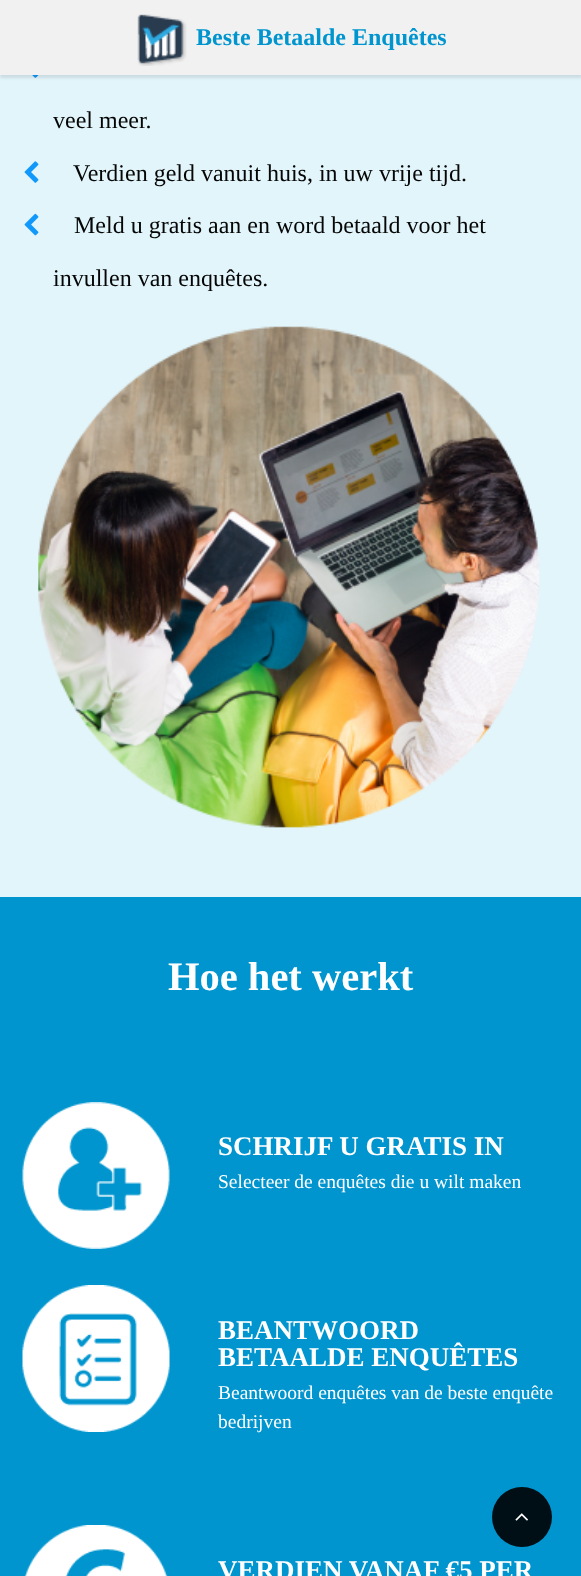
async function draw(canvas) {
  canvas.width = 581;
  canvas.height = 1576;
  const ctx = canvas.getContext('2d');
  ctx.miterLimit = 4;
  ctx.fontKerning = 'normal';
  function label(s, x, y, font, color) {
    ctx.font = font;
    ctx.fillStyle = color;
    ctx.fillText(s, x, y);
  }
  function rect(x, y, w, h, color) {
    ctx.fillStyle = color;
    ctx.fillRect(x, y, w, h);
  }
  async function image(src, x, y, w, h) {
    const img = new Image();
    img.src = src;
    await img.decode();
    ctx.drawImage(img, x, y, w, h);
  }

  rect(0, 0, 581, 1576, '#e2f5fb');
  await image('assets/img2.png', 32, 75, 7, 3);
  ctx.fillStyle = '#0000001a';
  ctx.filter = 'blur(1.5px)';
  ctx.beginPath();
  ctx.rect(0, 3, 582, 75);
  ctx.fill();
  ctx.filter = 'none';
  rect(0, 0, 581, 75, '#f1f1f1');
  await image('assets/img1.png', 137, 14, 50, 52);
  label('Beste Betaalde Enquêtes', 196, 45, 'bold 24px Liberation Serif', '#0095ce');
  label('veel meer.', 53, 128, '24px Liberation Serif', '#060606');
  await image('assets/img3.png', 24, 161, 15, 22);
  label('Verdien geld vanuit huis, in uw vrije tijd.', 73, 181, '24px Liberation Serif', '#060606');
  await image('assets/img4.png', 24, 213, 15, 23);
  label('Meld u gratis aan en word betaald voor het', 74, 233, '24px Liberation Serif', '#060606');
  label('invullen van enquêtes.', 53, 286, '24px Liberation Serif', '#060606');
  await image('assets/img5.png', 38, 326, 502, 502);
  rect(0, 897, 581, 679, '#0095ce');
  label('Hoe het werkt', 168, 990, 'bold 40.5px Liberation Serif', '#fff');
  await image('assets/img6.png', 22, 1102, 148, 147);
  label('SCHRIJF U GRATIS IN', 218, 1155, 'bold 27px Liberation Serif', '#fff');
  label('Selecteer de enquêtes die u wilt maken', 218, 1188, '19.5px Liberation Serif', '#fff');
  await image('assets/img7.png', 22, 1285, 148, 147);
  label('BEANTWOORD', 218, 1339, 'bold 27px Liberation Serif', '#fff');
  label('BETAALDE ENQUÊTES', 218, 1366, 'bold 27px Liberation Serif', '#fff');
  label('Beantwoord enquêtes van de beste enquête', 218, 1399, '19.5px Liberation Serif', '#fff');
  label('bedrijven', 218, 1428, '19.5px Liberation Serif', '#fff');
  await image('assets/img8.png', 24, 1525, 144, 51);
  label('VERDIEN VANAF €5 PER', 218, 1579, 'bold 27px Liberation Serif', '#fff');
  ctx.fillStyle = '#000f15';
  ctx.beginPath();
  ctx.arc(522, 1517, 30, 0, 2 * Math.PI);
  ctx.fill();
  await image('assets/img9.png', 515, 1513, 13, 8);
}

draw(document.querySelector('canvas'));
